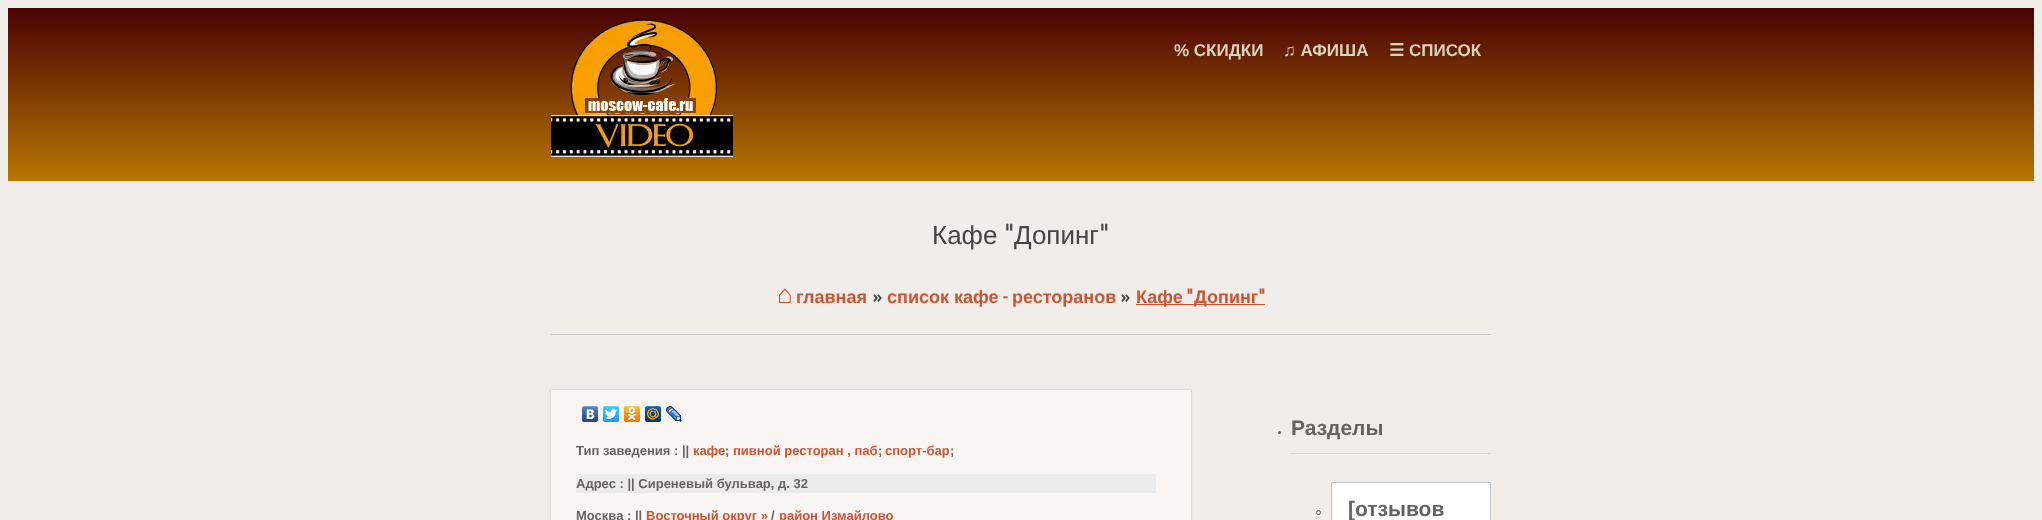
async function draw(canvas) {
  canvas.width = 2042;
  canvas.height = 520;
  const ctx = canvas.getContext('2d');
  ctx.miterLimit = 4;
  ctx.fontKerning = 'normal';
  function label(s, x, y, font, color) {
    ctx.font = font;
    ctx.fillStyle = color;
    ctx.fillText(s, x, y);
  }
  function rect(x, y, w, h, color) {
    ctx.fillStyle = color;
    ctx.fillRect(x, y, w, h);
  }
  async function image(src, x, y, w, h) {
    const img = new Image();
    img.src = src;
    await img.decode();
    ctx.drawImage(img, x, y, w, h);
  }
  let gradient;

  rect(0, 0, 2042, 520, '#f1ede8');
  gradient = ctx.createLinearGradient(1021, 181, 1021, 8);
  gradient.addColorStop(0, '#b87602');
  gradient.addColorStop(1, '#490202');
  ctx.fillStyle = gradient;
  ctx.fillRect(8, 8, 2026, 173);
  await image('assets/img1.png', 551, 19, 182, 138);
  label('% СКИДКИ', 1174, 56, 'bold 17px Liberation Sans', '#dcd2be');
  label('♫ АФИША', 1283, 56, 'bold 17px Liberation Sans', '#dcd2be');
  label('☰', 1389, 56, 'bold 17px DejaVu Sans', '#dcd2be');
  label('СПИСОК', 1409, 56, 'bold 17px Liberation Sans', '#dcd2be');
  rect(551, 334, 940, 1, '#ccc');
  label('Кафе', 932, 244, '26px Liberation Sans', '#444');
  label('"', 1004, 244, '26px Voltaire', '#444');
  label('Допинг', 1014, 244, '26px Liberation Sans', '#444');
  label('"', 1099, 244, '26px Voltaire', '#444');
  label('⌂', 777, 303, 'bold 26px Liberation Sans', '#cb5432');
  label('главная', 796, 303, 'bold 18px Liberation Sans', '#cb5432');
  label('»', 872, 303, 'bold 18px Voltaire', '#444');
  label('список кафе', 887, 303, 'bold 18px Liberation Sans', '#cb5432');
  label('-', 1002, 303, 'bold 18px Voltaire', '#cb5432');
  label('ресторанов', 1012, 303, 'bold 18px Liberation Sans', '#cb5432');
  label('»', 1120, 303, 'bold 18px Voltaire', '#444');
  rect(1136, 304, 129, 1, '#cb5432');
  label('Кафе', 1136, 303, 'bold 18px Liberation Sans', '#cb5432');
  label('"', 1186, 303, 'bold 18px Voltaire', '#cb5432');
  label('Допинг', 1194, 303, 'bold 18px Liberation Sans', '#cb5432');
  label('"', 1258, 303, 'bold 18px Voltaire', '#cb5432');
  ctx.fillStyle = '#00000033';
  ctx.filter = 'blur(1px)';
  ctx.beginPath();
  ctx.rect(551, 390, 640, 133);
  ctx.fill();
  ctx.filter = 'none';
  rect(551, 390, 640, 130, '#f8f5f2');
  await image('assets/img2.png', 582, 406, 16, 16);
  await image('assets/img3.png', 603, 406, 16, 16);
  await image('assets/img4.png', 624, 406, 16, 16);
  await image('assets/img5.png', 645, 406, 16, 16);
  await image('assets/img6.png', 666, 406, 16, 16);
  label('Тип заведения : ||', 576, 455, 'bold 13px Liberation Sans', '#656360');
  label('кафе', 693, 455, 'bold 13px Liberation Sans', '#cb5432');
  label(';', 725, 455, 'bold 13px Liberation Sans', '#656360');
  label('пивной ресторан , паб', 733, 455, 'bold 13px Liberation Sans', '#cb5432');
  label(';', 878, 455, 'bold 13px Liberation Sans', '#656360');
  label('спорт-бар', 885, 455, 'bold 13px Liberation Sans', '#cb5432');
  label(';', 950, 455, 'bold 13px Liberation Sans', '#656360');
  rect(576, 474, 580, 19, '#ecebeb');
  label('Адрес : || Сиреневый бульвар, д. 32', 576, 488, 'bold 13px Liberation Sans', '#656360');
  label('Москва : ||', 576, 520, 'bold 13px Liberation Sans', '#656360');
  label('Восточный округ »', 646, 520, 'bold 13px Liberation Sans', '#cb5432');
  label('/', 771, 520, 'bold 13px Liberation Sans', '#656360');
  label('район Измайлово', 779, 520, 'bold 13px Liberation Sans', '#cb5432');
  ctx.fillStyle = '#656360';
  ctx.beginPath();
  ctx.arc(1279.5, 432.5, 1.5, 0, 2 * Math.PI);
  ctx.fill();
  rect(1291, 453, 200, 1, '#d9d5d1');
  label('Разделы', 1291, 435, 'bold 21px Liberation Sans', '#656360');
  ctx.beginPath();
  ctx.arc(1318.5, 512.5, 2, 0, 2 * Math.PI);
  ctx.strokeStyle = '#656360';
  ctx.stroke();
  ctx.fillStyle = '#fff';
  ctx.beginPath();
  ctx.rect(1331.5, 482.5, 159, 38);
  ctx.fill();
  ctx.strokeStyle = '#c0c0c0';
  ctx.stroke();
  label('[отзывов', 1348, 516, 'bold 21px Liberation Sans', '#656360');
}

draw(document.querySelector('canvas'));
